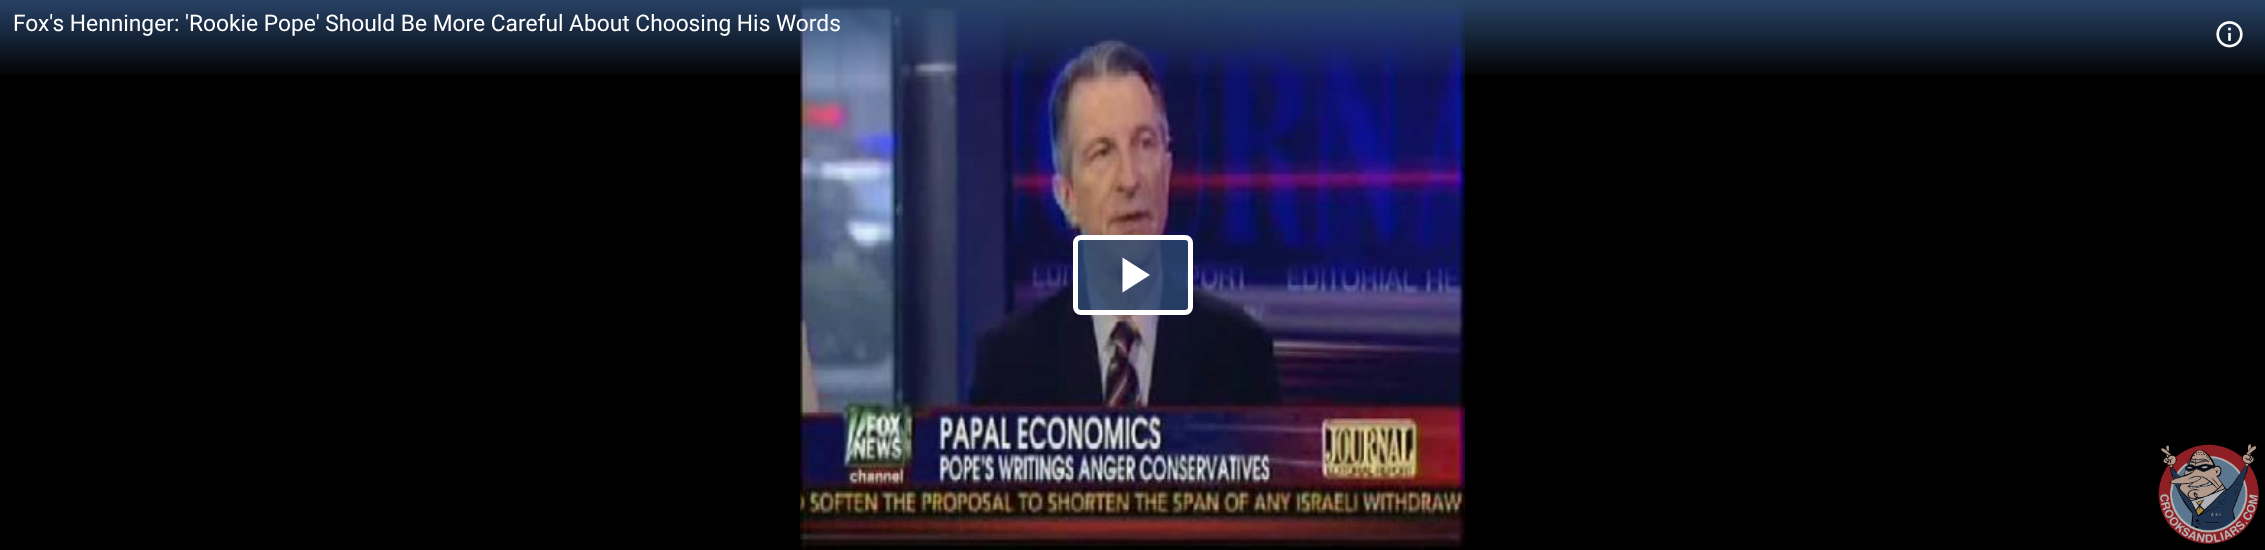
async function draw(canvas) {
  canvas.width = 2265;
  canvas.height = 550;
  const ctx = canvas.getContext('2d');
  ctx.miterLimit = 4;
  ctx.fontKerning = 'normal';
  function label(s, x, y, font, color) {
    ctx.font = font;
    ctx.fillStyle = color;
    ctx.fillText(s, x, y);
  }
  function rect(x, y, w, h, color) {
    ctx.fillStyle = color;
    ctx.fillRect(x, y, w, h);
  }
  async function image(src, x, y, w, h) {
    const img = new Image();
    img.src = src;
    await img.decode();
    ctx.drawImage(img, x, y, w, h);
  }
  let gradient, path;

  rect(0, 0, 2265, 550, '#000');
  await image('assets/img2.png', 800, 0, 665, 550);
  gradient = ctx.createLinearGradient(1133, 0, 1133, 75);
  gradient.addColorStop(0.01, '#2c4971e6');
  gradient.addColorStop(1, '#2c49710d');
  ctx.fillStyle = gradient;
  ctx.fillRect(0, 0, 2265, 75);
  label('Fox\'s Henninger: \'Rookie Pope\' Should Be More Careful About Choosing His Words', 13, 31, '22.75px Roboto', '#fff');
  await image('assets/img1.png', 2216, 21, 27, 27);
  ctx.fillStyle = '#2c4971cc';
  ctx.beginPath();
  ctx.roundRect(1075.5, 237.5, 115, 75, 5.5);
  ctx.fill();
  ctx.strokeStyle = '#fff';
  ctx.lineWidth = 5;
  ctx.stroke();
  ctx.fillStyle = '#fff';
  path = new Path2D('M1122.5 257.5V292.5L1150 275Z');
  ctx.fill(path);
  await image('assets/img3.png', 2158, 444, 101, 100);
}

draw(document.querySelector('canvas'));
